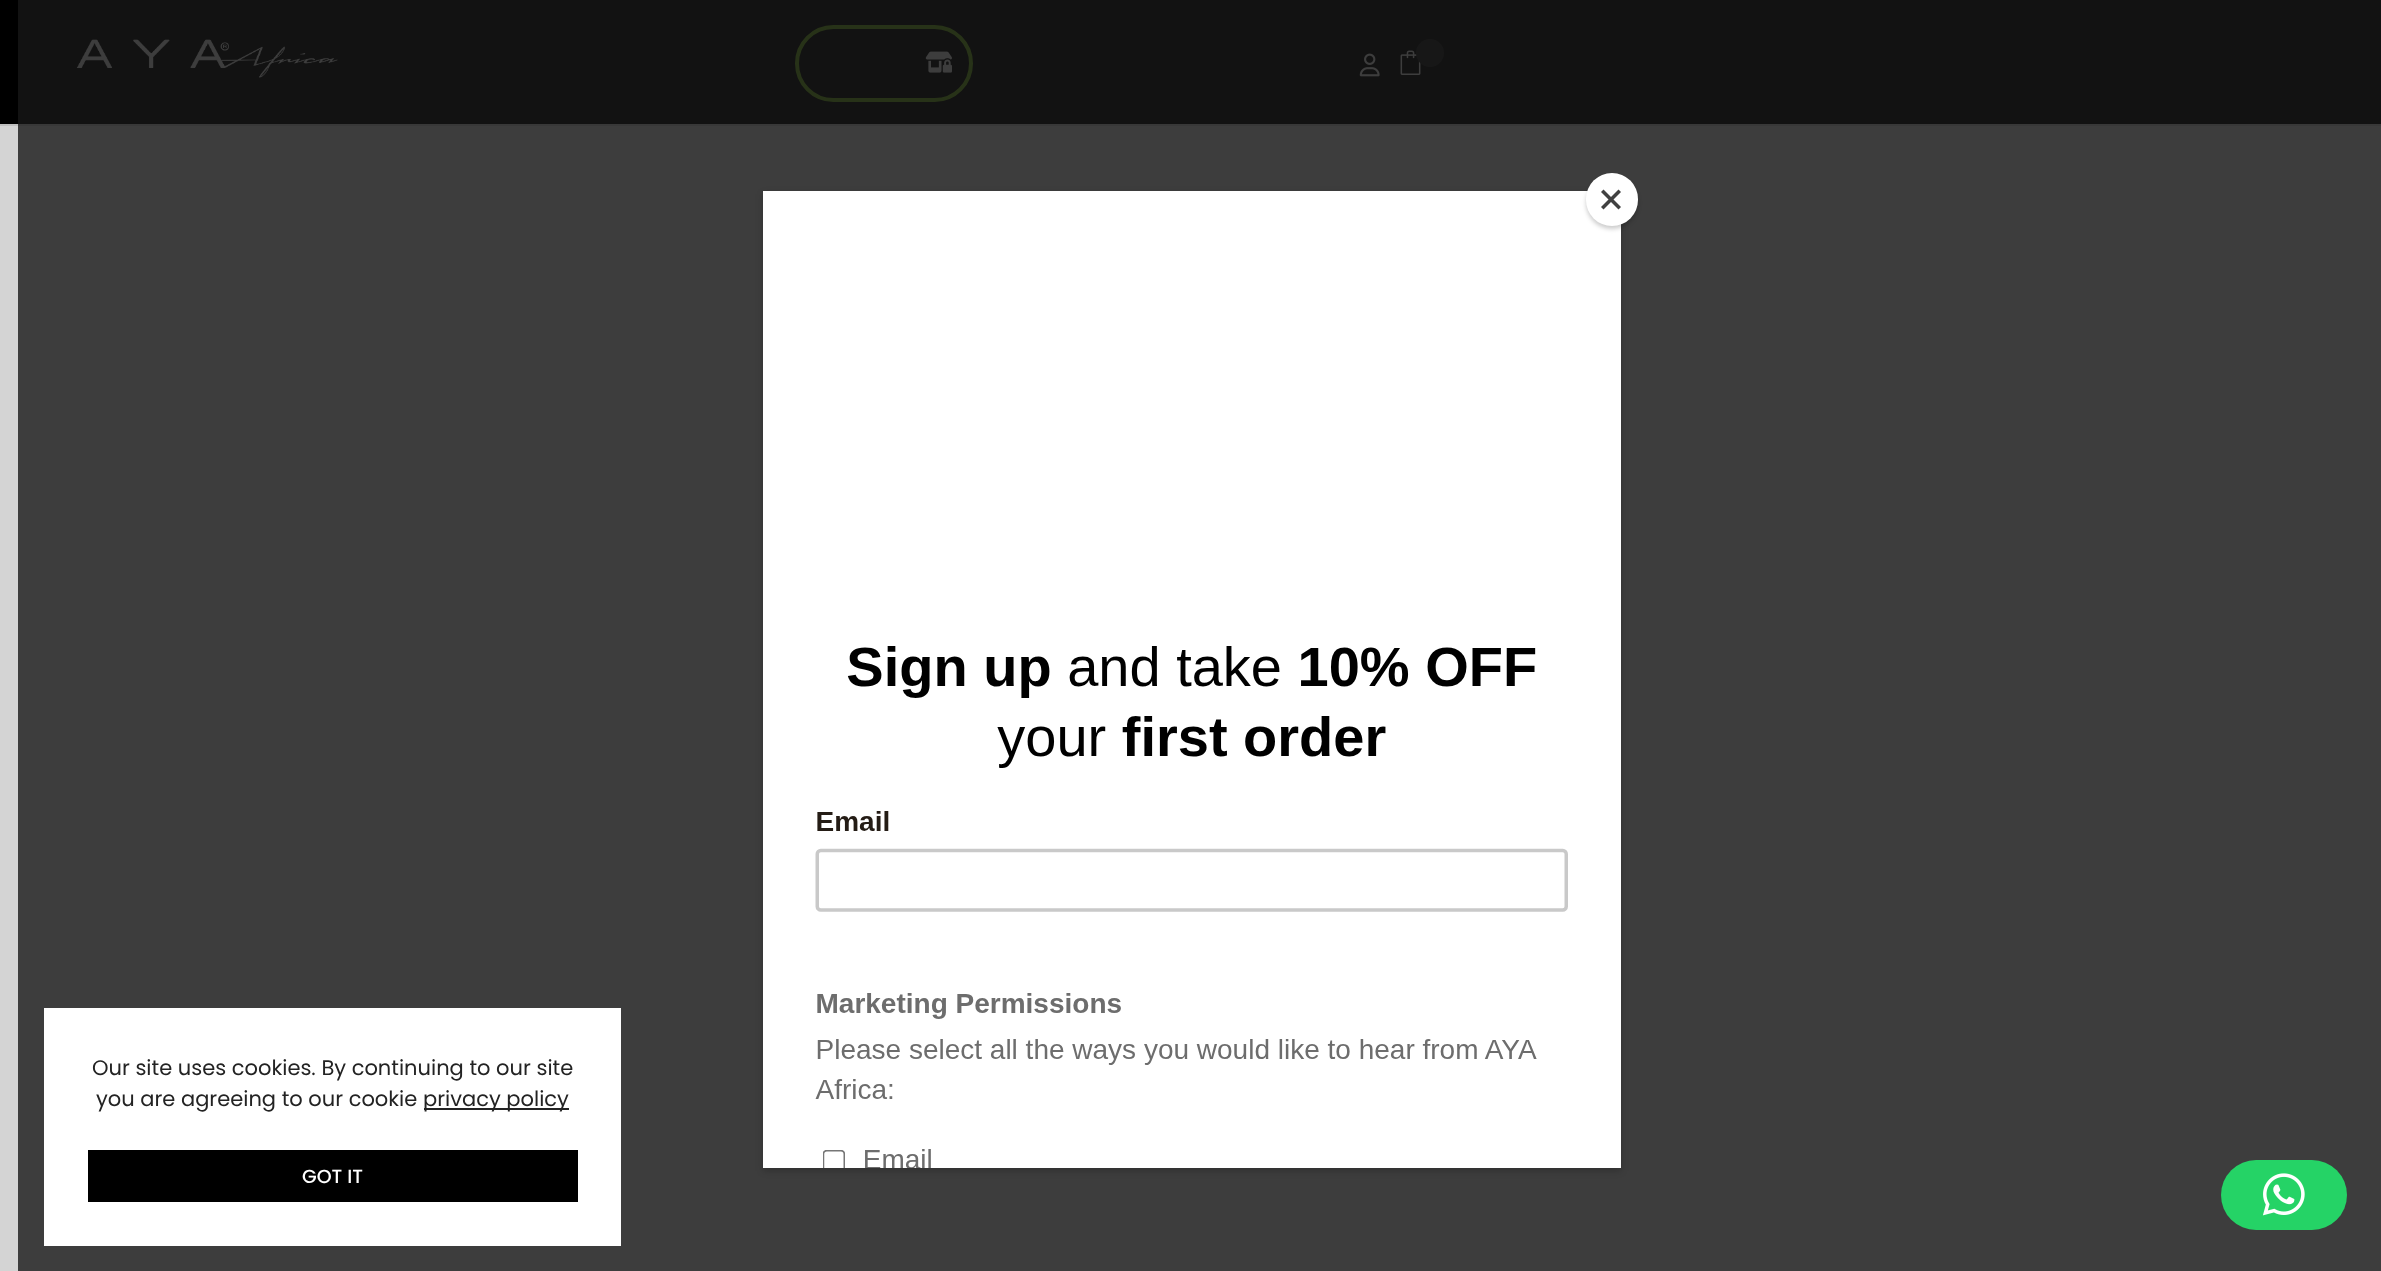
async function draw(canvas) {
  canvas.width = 2381;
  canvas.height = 1271;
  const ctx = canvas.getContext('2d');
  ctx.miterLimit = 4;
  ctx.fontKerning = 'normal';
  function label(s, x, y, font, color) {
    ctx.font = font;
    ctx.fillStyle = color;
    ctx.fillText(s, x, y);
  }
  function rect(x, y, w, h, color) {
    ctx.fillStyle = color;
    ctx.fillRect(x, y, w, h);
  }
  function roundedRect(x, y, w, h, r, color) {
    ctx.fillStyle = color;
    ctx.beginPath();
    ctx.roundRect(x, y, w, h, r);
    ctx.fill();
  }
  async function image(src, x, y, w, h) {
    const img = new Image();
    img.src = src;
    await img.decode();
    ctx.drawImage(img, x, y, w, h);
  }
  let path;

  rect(0, 0, 2381, 1271, '#d4d4d4');
  ctx.fillStyle = '#bfbfbf';
  path = new Path2D('M0 124V126H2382V2V124Z');
  ctx.fill(path);
  rect(0, 0, 2381, 124, '#000');
  await image('assets/img1.png', 76, 39, 262, 39);
  ctx.beginPath();
  ctx.roundRect(797, 27, 174, 73, 36.5);
  ctx.strokeStyle = '#6ca21e';
  ctx.lineWidth = 4;
  ctx.stroke();
  await image('assets/img2.png', 925, 51, 27, 22);
  await image('assets/img3.png', 1359, 53, 21, 24);
  await image('assets/img4.png', 1400, 50, 21, 25);
  ctx.fillStyle = '#1d1d1d';
  ctx.beginPath();
  ctx.arc(1430, 53, 14, 0, 2 * Math.PI);
  ctx.fill();
  rect(18, 0, 2363, 1271, '#171717cc');
  rect(44, 1008, 577, 238, '#fff');
  label('Our site uses cookies. By continuing to our site', 92, 1075, '21px Poppins', '#232323');
  label('you are agreeing to our cookie', 96, 1106, '21px Poppins', '#232323');
  rect(424, 1108, 145, 2, '#232323');
  label('privacy policy', 423, 1106, '21px Poppins', '#232323');
  rect(88, 1150, 490, 52, '#000');
  label('GOT IT', 302, 1183, '500 19px Poppins', '#fff');
  ctx.fillStyle = '#00000033';
  ctx.filter = 'blur(3.5px)';
  ctx.beginPath();
  ctx.rect(763, 194, 858, 977);
  ctx.fill();
  ctx.filter = 'none';
  await image('assets/img5.png', 763, 191, 858, 977);
  ctx.filter = 'blur(2px)';
  ctx.beginPath();
  ctx.roundRect(1586, 177, 52, 52, 26);
  ctx.fill();
  ctx.filter = 'none';
  roundedRect(1586, 173, 52, 53, 26, '#fff');
  ctx.fillStyle = '#414141';
  path = new Path2D('M1618.5 189.5L1621 192L1603.5 209.5L1601 207Z');
  ctx.fill(path);
  path = new Path2D('M1601 192L1603.5 189.5L1621 207L1618.5 209.5Z');
  ctx.fill(path);
  roundedRect(2221, 1160, 126, 70, 35, '#25d366');
  await image('assets/img6.png', 2262, 1173, 43, 43);
}

draw(document.querySelector('canvas'));
